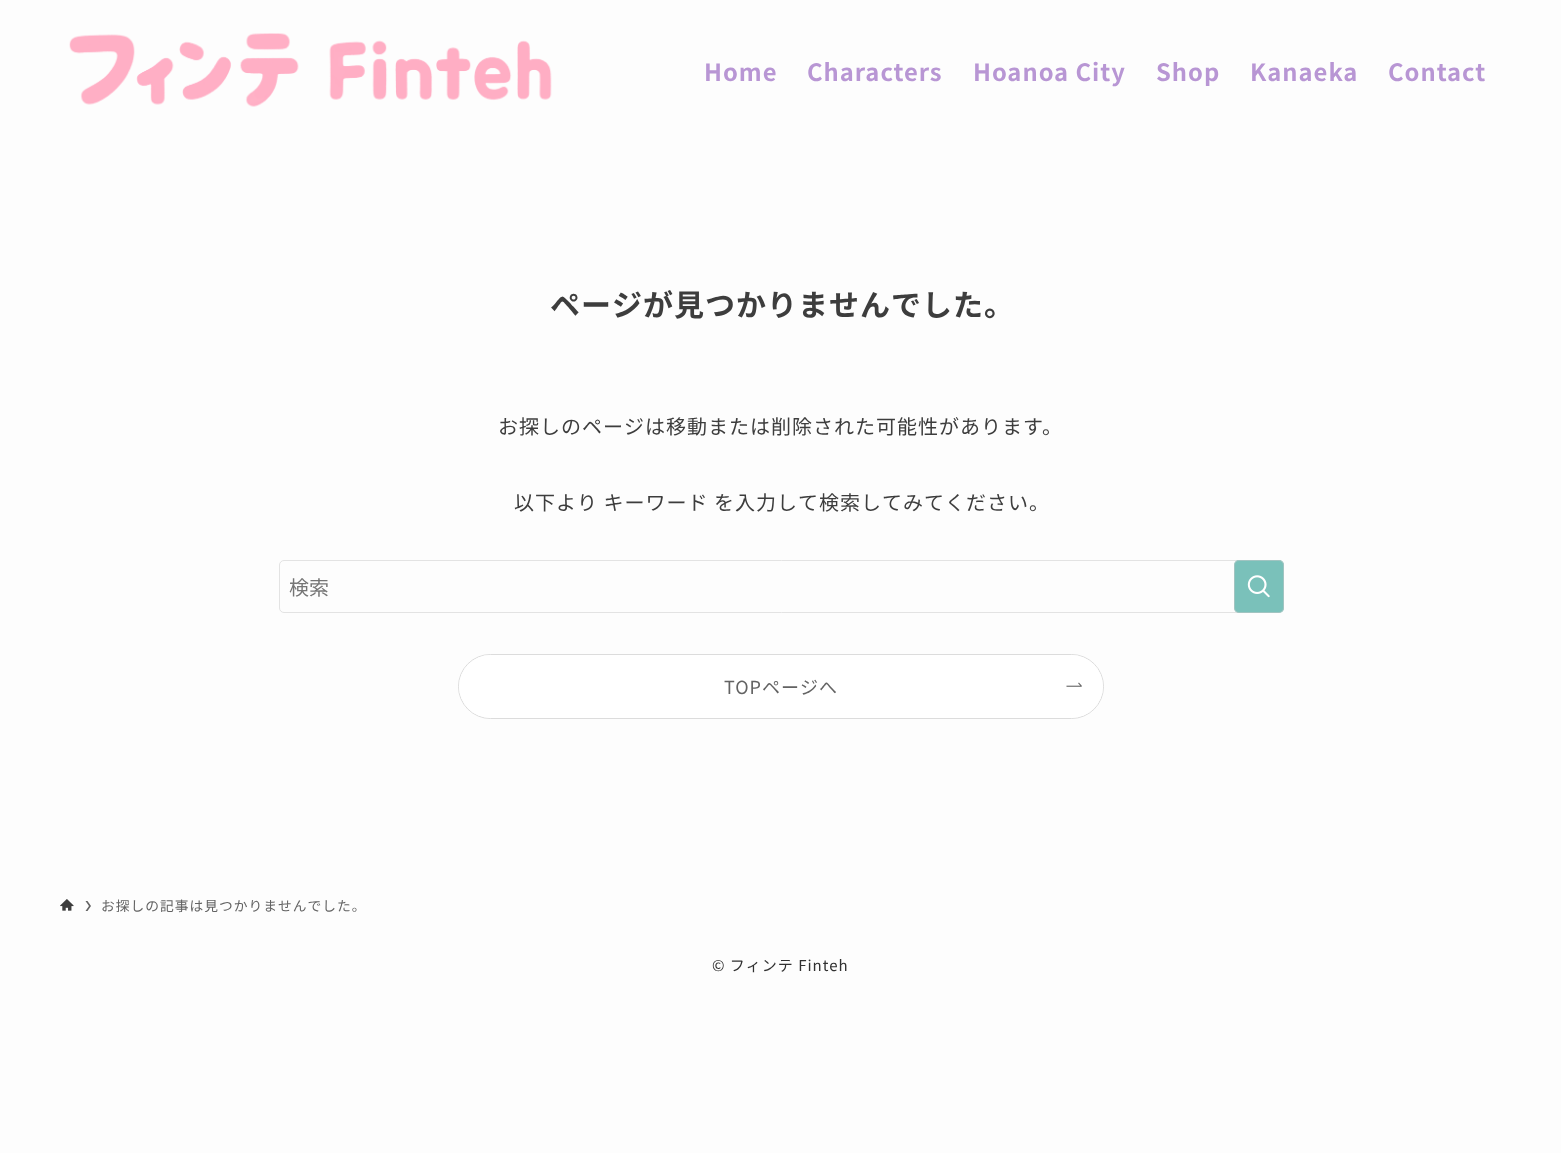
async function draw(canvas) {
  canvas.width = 1561;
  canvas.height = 1153;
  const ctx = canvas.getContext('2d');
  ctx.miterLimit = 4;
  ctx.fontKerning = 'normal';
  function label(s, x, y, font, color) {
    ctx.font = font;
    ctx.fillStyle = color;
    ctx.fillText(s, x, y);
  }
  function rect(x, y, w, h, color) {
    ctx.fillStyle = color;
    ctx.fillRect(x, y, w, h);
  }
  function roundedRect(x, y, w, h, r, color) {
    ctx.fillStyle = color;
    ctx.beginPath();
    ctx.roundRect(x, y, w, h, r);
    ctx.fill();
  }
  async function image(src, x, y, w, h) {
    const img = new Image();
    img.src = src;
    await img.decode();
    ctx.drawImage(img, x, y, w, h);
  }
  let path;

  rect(0, 0, 1561, 1153, '#fdfdfd');
  await image('assets/img1.png', 69, 33, 483, 74);
  ctx.letterSpacing = '1px';
  label('Home', 704, 81, 'bold 23.75px Noto Sans JP', '#b896d4');
  label('Characters', 807, 81, 'bold 23.75px Noto Sans JP', '#b896d4');
  label('Hoanoa City', 973, 81, 'bold 23.75px Noto Sans JP', '#b896d4');
  label('Shop', 1156, 81, 'bold 23.75px Noto Sans JP', '#b896d4');
  label('Kanaeka', 1250, 81, 'bold 23.75px Noto Sans JP', '#b896d4');
  label('Contact', 1388, 81, 'bold 23.75px Noto Sans JP', '#b896d4');
  label('ページが見つかりませんでした。', 550, 316, 'bold 30px Noto Sans JP', '#3d3d3d');
  label('お探しのページは移動または削除された可能性があります。', 498, 434, '20px Noto Sans JP', '#3d3d3d');
  label('以下より キーワード を入力して検索してみてください。', 514, 510, '20px Noto Sans JP', '#3d3d3d');
  ctx.beginPath();
  ctx.roundRect(279.5, 560.5, 1004, 52, 4.5);
  ctx.strokeStyle = '#e3e3e3';
  ctx.stroke();
  ctx.letterSpacing = '0px';
  label('検索', 289, 595, '20px Noto Sans JP', '#757575');
  roundedRect(1234, 560, 50, 53, 5, '#7ac1ba');
  ctx.beginPath();
  ctx.roundRect(1234.5, 560.5, 49, 52, 4.5);
  ctx.strokeStyle = '#c7c7c780';
  ctx.stroke();
  await image('assets/img2.png', 1247, 575, 23, 23);
  ctx.beginPath();
  ctx.roundRect(458.5, 654.5, 645, 64, 32);
  ctx.strokeStyle = '#dcdcdc';
  ctx.stroke();
  roundedRect(459, 655, 644, 63, 31.5, '#fff');
  ctx.letterSpacing = '1px';
  label('TOPページへ', 724, 694, '18px Noto Sans JP', '#636363');
  await image('assets/img3.png', 1066, 682, 16, 5);
  await image('assets/img4.png', 60, 899, 14, 12);
  path = new Path2D('M87.5 901H85.5L89 906L85.5 911H87.5L91 906Z');
  ctx.fill(path);
  label('お探しの記事は見つかりませんでした。', 101, 911, '13.75px Noto Sans JP', '#636363');
  label('© フィンテ Finteh', 712, 971, '15px Noto Sans JP', '#303030');
}

draw(document.querySelector('canvas'));
